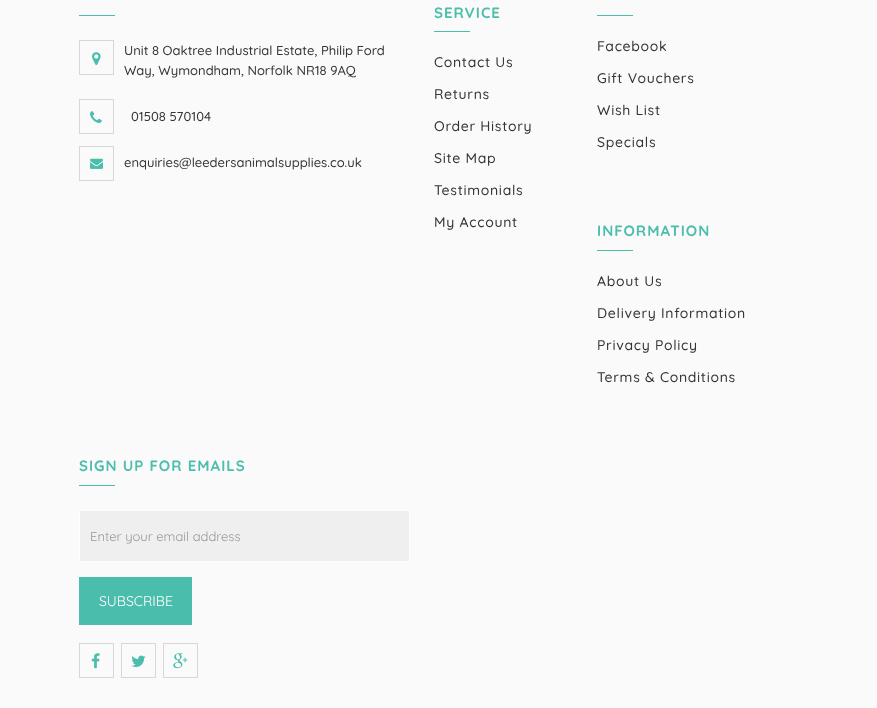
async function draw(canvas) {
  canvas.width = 877;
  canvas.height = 708;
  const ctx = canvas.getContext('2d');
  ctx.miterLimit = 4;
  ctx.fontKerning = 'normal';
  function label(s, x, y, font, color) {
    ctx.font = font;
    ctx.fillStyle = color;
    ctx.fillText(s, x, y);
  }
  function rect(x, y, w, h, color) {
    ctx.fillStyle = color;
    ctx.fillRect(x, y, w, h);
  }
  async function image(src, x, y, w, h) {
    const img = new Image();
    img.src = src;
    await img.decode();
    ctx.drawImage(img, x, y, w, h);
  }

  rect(0, 0, 877, 708, '#fafafa');
  rect(79, 15, 36, 1, '#4abdac');
  ctx.strokeStyle = '#d7d7d7';
  ctx.strokeRect(79.5, 40.5, 34, 34);
  await image('assets/img1.png', 92, 52, 9, 13);
  label('Unit 8 Oaktree Industrial Estate, Philip Ford', 124, 55, '500 13px Quicksand', '#343434');
  label('Way, Wymondham, Norfolk NR18 9AQ', 124, 75, '500 13px Quicksand', '#343434');
  ctx.strokeRect(79.5, 99.5, 34, 34);
  await image('assets/img2.png', 90, 111, 12, 12);
  label('01508 570104', 131, 121, '500 13px Quicksand', '#343434');
  ctx.strokeRect(79.5, 146.5, 34, 34);
  await image('assets/img3.png', 90, 158, 13, 11);
  label('enquiries@leedersanimalsupplies.co.uk', 124, 167, '500 13px Quicksand', '#343434');
  ctx.letterSpacing = '1px';
  label('SERVICE', 434, 18, 'bold 15px Quicksand', '#4dbdac');
  rect(434, 31, 36, 1, '#4abdac');
  ctx.letterSpacing = '0.7px';
  label('Contact Us', 434, 67, '500 14px Quicksand', '#343434');
  label('Returns', 434, 99, '500 14px Quicksand', '#343434');
  label('Order History', 434, 131, '500 14px Quicksand', '#343434');
  label('Site Map', 434, 163, '500 14px Quicksand', '#343434');
  label('Testimonials', 434, 195, '500 14px Quicksand', '#343434');
  label('My Account', 434, 227, '500 14px Quicksand', '#343434');
  rect(597, 15, 36, 1, '#4abdac');
  label('Facebook', 597, 51, '500 14px Quicksand', '#343434');
  label('Gift Vouchers', 597, 83, '500 14px Quicksand', '#343434');
  label('Wish List', 597, 115, '500 14px Quicksand', '#343434');
  label('Specials', 597, 147, '500 14px Quicksand', '#343434');
  ctx.letterSpacing = '1px';
  label('INFORMATION', 597, 236, 'bold 15px Quicksand', '#4dbdac');
  rect(597, 250, 36, 1, '#4abdac');
  ctx.letterSpacing = '0.7px';
  label('About Us', 597, 286, '500 14px Quicksand', '#343434');
  label('Delivery Information', 597, 318, '500 14px Quicksand', '#343434');
  label('Privacy Policy', 597, 350, '500 14px Quicksand', '#343434');
  label('Terms & Conditions', 597, 382, '500 14px Quicksand', '#343434');
  ctx.letterSpacing = '1px';
  label('SIGN UP FOR EMAILS', 79, 471, 'bold 15px Quicksand', '#4dbdac');
  rect(79, 485, 36, 1, '#4abdac');
  ctx.fillStyle = '#efefef';
  ctx.beginPath();
  ctx.rect(79.5, 510.5, 330, 51);
  ctx.fill();
  ctx.strokeStyle = '#fefefe';
  ctx.stroke();
  ctx.letterSpacing = '0px';
  label('Enter your email address', 90, 541, '13px Quicksand', '#999');
  rect(79, 577, 113, 48, '#4abdac');
  label('SUBSCRIBE', 99, 606, '14px Quicksand', '#fff');
  ctx.strokeStyle = '#d7d7d7';
  ctx.strokeRect(79.5, 643.5, 34, 34);
  await image('assets/img4.png', 91, 653, 9, 16);
  ctx.strokeRect(121.5, 643.5, 34, 34);
  await image('assets/img5.png', 131, 655, 15, 12);
  ctx.strokeRect(163.5, 643.5, 34, 34);
  await image('assets/img6.png', 173, 653, 15, 16);
}

draw(document.querySelector('canvas'));
